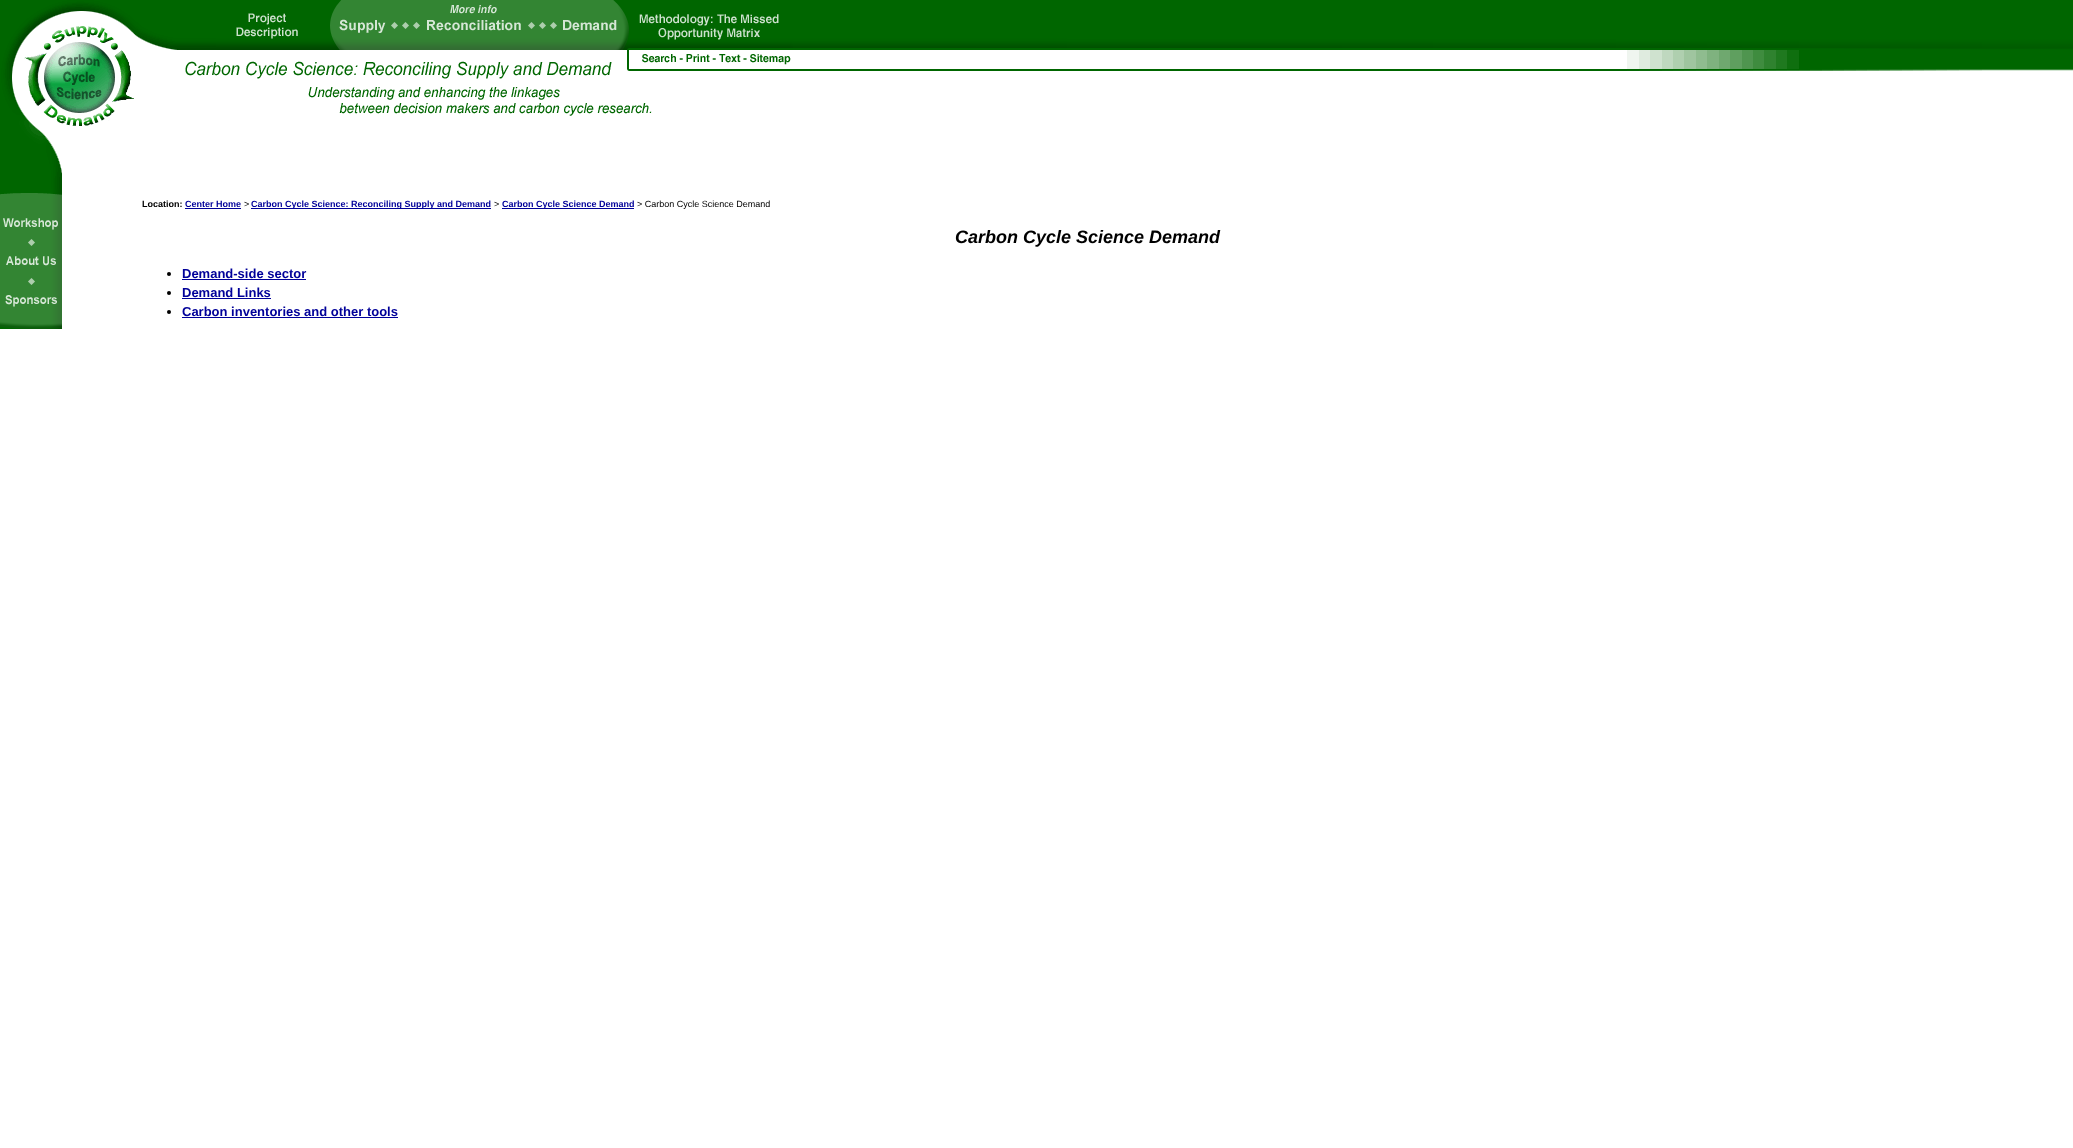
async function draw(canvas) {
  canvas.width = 2073;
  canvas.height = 1148;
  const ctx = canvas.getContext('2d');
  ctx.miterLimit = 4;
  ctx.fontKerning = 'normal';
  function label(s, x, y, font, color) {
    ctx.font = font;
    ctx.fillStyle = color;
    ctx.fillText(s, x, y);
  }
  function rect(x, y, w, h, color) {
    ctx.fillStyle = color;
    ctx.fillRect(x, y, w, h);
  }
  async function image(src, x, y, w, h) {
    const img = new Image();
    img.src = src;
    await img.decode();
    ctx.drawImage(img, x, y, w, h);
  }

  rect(0, 0, 2073, 1148, '#fff');
  await image('assets/img1.png', 0, 0, 216, 189);
  await image('assets/img2.png', 216, 0, 94, 40);
  await image('assets/img3.png', 310, 0, 317, 17);
  await image('assets/img4.png', 627, 0, 166, 40);
  await image('assets/img5.png', 793, 0, 1280, 71);
  await image('assets/img6.png', 310, 17, 101, 23);
  await image('assets/img7.png', 411, 17, 127, 23);
  await image('assets/img8.png', 538, 17, 89, 23);
  await image('assets/img9.png', 216, 40, 411, 76);
  await image('assets/img10.png', 627, 40, 55, 30);
  await image('assets/img11.png', 682, 40, 31, 30);
  await image('assets/img12.png', 713, 40, 32, 30);
  await image('assets/img13.png', 745, 40, 48, 30);
  await image('assets/img14.png', 627, 70, 166, 44);
  await image('assets/img15.png', 0, 189, 62, 53);
  await image('assets/img16.png', 0, 242, 62, 39);
  await image('assets/img17.png', 0, 281, 62, 48);
  label('Location:', 142, 207, 'bold 9px Liberation Sans', '#000');
  label('Center Home', 185, 207, 'bold 9px Liberation Sans', '#009');
  rect(185, 208, 56, 1, '#009');
  label('>', 244, 207, '9px Liberation Sans', '#000');
  rect(251, 208, 240, 1, '#009');
  label('Carbon Cycle Science: Reconciling Supply and Demand', 251, 207, 'bold 9px Liberation Sans', '#009');
  label('>', 494, 207, '9px Liberation Sans', '#000');
  rect(502, 208, 132, 1, '#009');
  label('Carbon Cycle Science Demand', 502, 207, 'bold 9px Liberation Sans', '#009');
  label('> Carbon Cycle Science Demand', 637, 207, '9px Liberation Sans', '#000');
  label('Carbon Cycle Science Demand', 955, 243, 'italic bold 18px Liberation Sans', '#000');
  ctx.beginPath();
  ctx.arc(169, 274, 2, 0, 2 * Math.PI);
  ctx.fill();
  label('Demand-side sector', 182, 278, 'bold 13px Liberation Sans', '#009');
  rect(182, 279, 124, 1, '#009');
  ctx.fillStyle = '#000';
  ctx.beginPath();
  ctx.arc(169, 293, 2, 0, 2 * Math.PI);
  ctx.fill();
  label('Demand Links', 182, 297, 'bold 13px Liberation Sans', '#009');
  rect(182, 298, 89, 1, '#009');
  ctx.fillStyle = '#000';
  ctx.beginPath();
  ctx.arc(169, 312, 2, 0, 2 * Math.PI);
  ctx.fill();
  label('Carbon inventories and other tools', 182, 316, 'bold 13px Liberation Sans', '#009');
  rect(182, 317, 216, 1, '#009');
}

draw(document.querySelector('canvas'));
